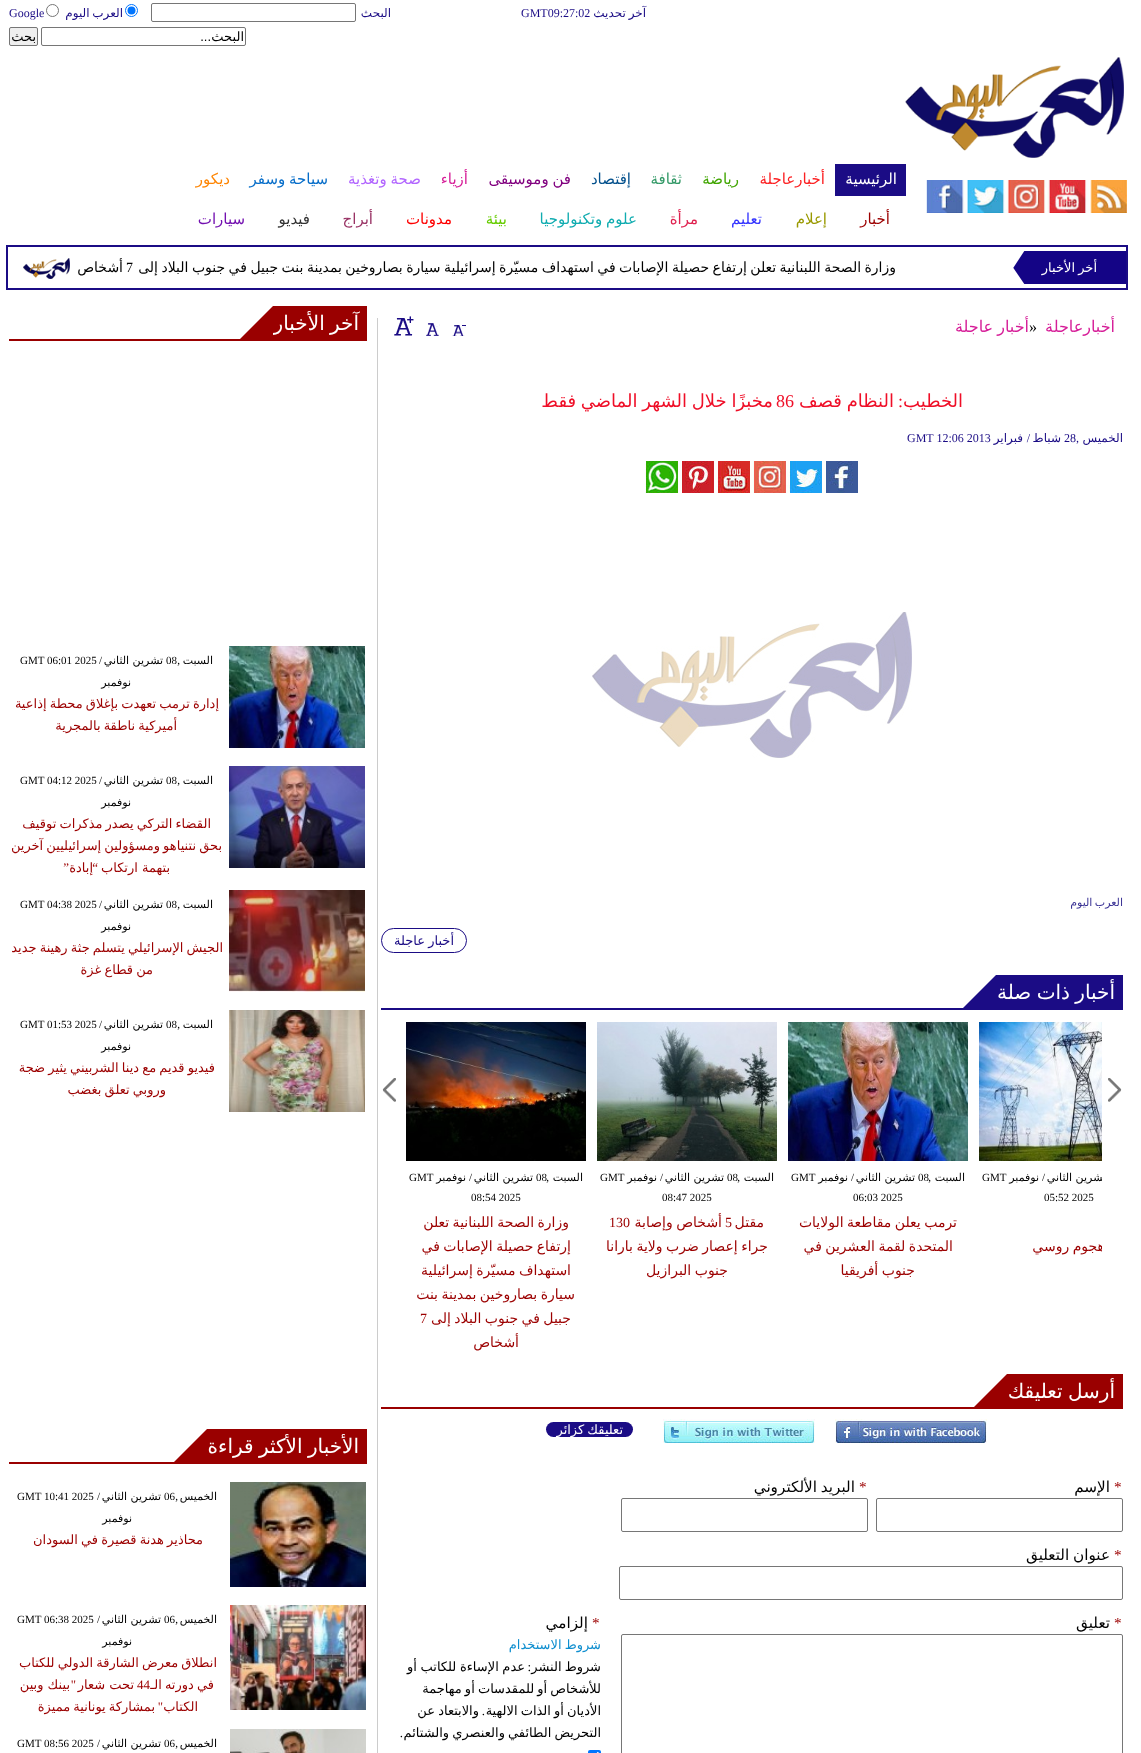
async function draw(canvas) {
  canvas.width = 1141;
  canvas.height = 1753;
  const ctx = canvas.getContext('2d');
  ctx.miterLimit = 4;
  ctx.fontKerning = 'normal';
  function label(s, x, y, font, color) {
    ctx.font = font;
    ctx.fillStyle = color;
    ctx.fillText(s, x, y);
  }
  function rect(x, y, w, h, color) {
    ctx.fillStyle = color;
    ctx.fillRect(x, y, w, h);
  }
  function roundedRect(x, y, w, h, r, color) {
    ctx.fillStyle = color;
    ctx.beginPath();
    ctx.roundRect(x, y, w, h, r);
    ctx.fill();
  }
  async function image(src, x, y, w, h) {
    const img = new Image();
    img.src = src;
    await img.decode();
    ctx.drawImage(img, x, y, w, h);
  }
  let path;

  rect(0, 0, 1141, 1753, '#fff');
  ctx.wordSpacing = '-1px';
  ctx.direction = 'rtl';
  label('آخر تحديث', 646, 17, '12px DejaVu Sans', '#1b0c85');
  ctx.wordSpacing = '0px';
  ctx.direction = 'ltr';
  label('GMT09:27:02', 521, 17, '12px Liberation Serif', '#1b0c85');
  ctx.direction = 'rtl';
  label('البحث', 391, 17, '12px DejaVu Sans', '#1b0c85');
  ctx.beginPath();
  ctx.roundRect(151.5, 3.5, 204, 18, 1.5);
  ctx.strokeStyle = '#767676';
  ctx.stroke();
  ctx.beginPath();
  ctx.arc(131.5, 10.5, 6, 0, 2 * Math.PI);
  ctx.strokeStyle = '#0075ff';
  ctx.stroke();
  ctx.fillStyle = '#0075ff';
  ctx.beginPath();
  ctx.arc(131.5, 10.5, 4, 0, 2 * Math.PI);
  ctx.fill();
  ctx.wordSpacing = '-1px';
  label('العرب اليوم', 123, 17, '12px DejaVu Sans', '#1b0c85');
  ctx.beginPath();
  ctx.arc(52.5, 10.5, 6, 0, 2 * Math.PI);
  ctx.strokeStyle = '#767676';
  ctx.stroke();
  ctx.wordSpacing = '0px';
  ctx.direction = 'ltr';
  label('Google', 9, 17, '12px Liberation Serif', '#1b0c85');
  ctx.beginPath();
  ctx.roundRect(41.5, 27.5, 204, 18, 1.5);
  ctx.stroke();
  ctx.direction = 'rtl';
  label('البحث', 244, 41, '13px DejaVu Sans', '#000');
  label('...', 211, 41, '13px Liberation Sans', '#000');
  ctx.fillStyle = '#efefef';
  ctx.beginPath();
  ctx.roundRect(9.5, 27.5, 28, 18, 1.5);
  ctx.fill();
  ctx.stroke();
  label('بحث', 36, 41, '13px DejaVu Sans', '#000');
  await image('assets/img1.png', 905, 57, 219, 101);
  await image('assets/img2.png', 926, 180, 201, 33);
  rect(835, 164, 71, 32, '#1b0c85');
  label('الرئيسية', 897, 184, '15px DejaVu Sans', '#fff');
  label('أخبارعاجلة', 825, 184, '15px DejaVu Sans', '#fc2022');
  label('رياضة', 739, 184, '15px DejaVu Sans', '#40a501');
  label('ثقافة', 682, 184, '15px DejaVu Sans', '#339967');
  label('إقتصاد', 631, 184, '15px DejaVu Sans', '#03508c');
  ctx.wordSpacing = '-1px';
  label('فن وموسيقى', 571, 184, '15px DejaVu Sans', '#81007f');
  ctx.wordSpacing = '0px';
  label('أزياء', 468, 184, '15px DejaVu Sans', '#d61e98');
  ctx.wordSpacing = '-1px';
  label('صحة وتغذية', 421, 184, '15px DejaVu Sans', '#b266ff');
  label('سياحة وسفر', 328, 184, '15px DejaVu Sans', '#066dc9');
  ctx.wordSpacing = '0px';
  label('ديكور', 230, 184, '15px DejaVu Sans', '#fe8503');
  label('أخبار', 890, 224, '15px DejaVu Sans', '#9c0000');
  label('إعلام', 827, 224, '15px DejaVu Sans', '#990');
  label('تعليم', 762, 224, '15px DejaVu Sans', '#33f');
  label('مرأة', 698, 224, '15px DejaVu Sans', '#df214f');
  ctx.wordSpacing = '-1px';
  label('علوم وتكنولوجيا', 637, 224, '15px DejaVu Sans', '#10acb0');
  ctx.wordSpacing = '0px';
  label('بيئة', 507, 224, '15px DejaVu Sans', '#6c0');
  label('مدونات', 452, 224, '15px DejaVu Sans', '#fe0000');
  label('أبراج', 373, 224, '15px DejaVu Sans', '#993365');
  label('فيديو', 310, 224, '15px DejaVu Sans', '#333');
  label('سيارات', 245, 224, '15px DejaVu Sans', '#7310b0');
  ctx.strokeStyle = '#1b0c85';
  ctx.lineWidth = 2;
  ctx.strokeRect(7, 246, 1120, 43);
  await image('assets/img3.png', 1013, 251, 113, 33);
  ctx.wordSpacing = '-1px';
  label('أخر الأخبار', 1097, 272, '13px DejaVu Sans', '#fff');
  await image('assets/img4.png', 23, 258, 47, 21);
  label('وزارة الصحة اللبنانية تعلن إرتفاع حصيلة الإصابات في استهداف مسيّرة إسرائيلية سيارة بصاروخين بمدينة بنت جبيل في جنوب البلاد إلى', 896, 272, '14px DejaVu Sans', '#000');
  ctx.wordSpacing = '0px';
  ctx.direction = 'ltr';
  label('7', 126, 272, '14px Liberation Serif', '#000');
  ctx.direction = 'rtl';
  label('أشخاص', 123, 272, '14px DejaVu Sans', '#000');
  label('أخبارعاجلة', 1115, 332, '16px DejaVu Sans', '#d61e98');
  ctx.direction = 'ltr';
  label('»', 1029, 332, '16px Liberation Serif', '#000');
  ctx.wordSpacing = '-1px';
  ctx.direction = 'rtl';
  label('أخبار عاجلة', 1029, 332, '16px DejaVu Sans', '#d61e98');
  await image('assets/img5.png', 452, 325, 14, 11);
  await image('assets/img6.png', 426, 323, 14, 13);
  await image('assets/img7.png', 394, 316, 20, 20);
  ctx.wordSpacing = '0px';
  label('الخطيب', 963, 407, '18px DejaVu Sans', '#ef0e27');
  label(':', 903, 407, '18px Liberation Serif', '#ef0e27');
  ctx.wordSpacing = '-1px';
  label('النظام قصف', 894, 407, '18px DejaVu Sans', '#ef0e27');
  ctx.wordSpacing = '0px';
  ctx.direction = 'ltr';
  label('86', 776, 407, '18px Liberation Serif', '#ef0e27');
  ctx.wordSpacing = '-1px';
  ctx.direction = 'rtl';
  label('مخبزًا خلال الشهر الماضي فقط', 773, 407, '18px DejaVu Sans', '#ef0e27');
  ctx.wordSpacing = '0px';
  label('الخميس', 1123, 442, '12px DejaVu Sans', '#1b0c85');
  label(',', 1079, 442, '12px Liberation Serif', '#1b0c85');
  ctx.direction = 'ltr';
  label('28', 1064, 442, '12px Liberation Serif', '#1b0c85');
  ctx.direction = 'rtl';
  label('شباط', 1061, 442, '12px DejaVu Sans', '#1b0c85');
  label('/', 1030, 442, '12px Liberation Serif', '#1b0c85');
  label('فبراير', 1023, 442, '12px DejaVu Sans', '#1b0c85');
  ctx.direction = 'ltr';
  label('GMT 12:06 2013', 907, 442, '12px Liberation Serif', '#1b0c85');
  await image('assets/img8.png', 645, 461, 213, 32);
  await image('assets/img9.png', 592, 612, 320, 146);
  ctx.wordSpacing = '-1px';
  ctx.direction = 'rtl';
  label('العرب اليوم', 1123, 906, '11px DejaVu Sans', '#393194');
  ctx.beginPath();
  ctx.roundRect(381.5, 928.5, 85, 24, 12);
  ctx.lineWidth = 1;
  ctx.stroke();
  label('أخبار عاجلة', 454, 945, '13px DejaVu Sans', '#1b0c85');
  rect(381, 1008, 742, 2, '#1b0c85');
  rect(996, 975, 127, 33, '#1b0c85');
  label('أخبار ذات صلة', 1115, 999, '20px DejaVu Sans', '#fff');
  ctx.fillStyle = '#1b0c85';
  path = new Path2D('M996 975V1008H963Z');
  ctx.fill(path);
  await image('assets/img10.png', 1108, 1078, 14, 24);
  await image('assets/img11.png', 382, 1078, 14, 24);
  await image('assets/img12.png', 979, 1022, 123, 139);
  ctx.save();
  ctx.beginPath();
  ctx.rect(970, 1022, 132, 247);
  ctx.clip();
  ctx.wordSpacing = '0px';
  label('تشرين الثاني', 1106, 1181, '11px DejaVu Sans', '#000');
  ctx.restore();
  ctx.wordSpacing = '0px';
  label('/', 1045, 1181, '11px Liberation Serif', '#000');
  label('نوفمبر', 1039, 1181, '11px DejaVu Sans', '#000');
  ctx.direction = 'ltr';
  label('GMT', 982, 1181, '11px Liberation Serif', '#000');
  label('05:52 2025', 1044, 1201, '11px Liberation Serif', '#000');
  ctx.save();
  ctx.beginPath();
  ctx.rect(970, 1022, 132, 247);
  ctx.clip();
  ctx.wordSpacing = '-1px';
  ctx.direction = 'rtl';
  label('هجوم روسي', 1105, 1251, '14px DejaVu Sans', '#9c0000');
  ctx.restore();
  await image('assets/img13.png', 788, 1022, 180, 139);
  ctx.direction = 'rtl';
  label('السبت', 965, 1181, '11px DejaVu Sans', '#000');
  label(',', 931, 1181, '11px Liberation Serif', '#000');
  ctx.direction = 'ltr';
  label('08', 918, 1181, '11px Liberation Serif', '#000');
  ctx.direction = 'rtl';
  label('تشرين الثاني', 915, 1181, '11px DejaVu Sans', '#000');
  label('/', 854, 1181, '11px Liberation Serif', '#000');
  label('نوفمبر', 848, 1181, '11px DejaVu Sans', '#000');
  ctx.direction = 'ltr';
  label('GMT', 791, 1181, '11px Liberation Serif', '#000');
  label('06:03 2025', 853, 1201, '11px Liberation Serif', '#000');
  ctx.wordSpacing = '-1px';
  ctx.direction = 'rtl';
  label('ترمب يعلن مقاطعة الولايات', 957, 1227, '14px DejaVu Sans', '#9c0000');
  label('المتحدة لقمة العشرين في', 953, 1251, '14px DejaVu Sans', '#9c0000');
  label('جنوب أفريقيا', 915, 1275, '14px DejaVu Sans', '#9c0000');
  await image('assets/img14.png', 597, 1022, 180, 139);
  ctx.wordSpacing = '0px';
  label('السبت', 774, 1181, '11px DejaVu Sans', '#000');
  label(',', 740, 1181, '11px Liberation Serif', '#000');
  ctx.direction = 'ltr';
  label('08', 727, 1181, '11px Liberation Serif', '#000');
  ctx.direction = 'rtl';
  label('تشرين الثاني', 724, 1181, '11px DejaVu Sans', '#000');
  label('/', 663, 1181, '11px Liberation Serif', '#000');
  label('نوفمبر', 657, 1181, '11px DejaVu Sans', '#000');
  ctx.direction = 'ltr';
  label('GMT', 600, 1181, '11px Liberation Serif', '#000');
  label('08:47 2025', 662, 1201, '11px Liberation Serif', '#000');
  ctx.direction = 'rtl';
  label('مقتل', 764, 1227, '14px DejaVu Sans', '#9c0000');
  ctx.direction = 'ltr';
  label('5', 725, 1227, '14px Liberation Serif', '#9c0000');
  ctx.wordSpacing = '-1px';
  ctx.direction = 'rtl';
  label('أشخاص وإصابة', 722, 1227, '14px DejaVu Sans', '#9c0000');
  ctx.wordSpacing = '0px';
  ctx.direction = 'ltr';
  label('130', 609, 1227, '14px Liberation Serif', '#9c0000');
  ctx.wordSpacing = '-1px';
  ctx.direction = 'rtl';
  label('جراء إعصار ضرب ولاية بارانا', 768, 1251, '14px DejaVu Sans', '#9c0000');
  label('جنوب البرازيل', 728, 1275, '14px DejaVu Sans', '#9c0000');
  await image('assets/img15.png', 406, 1022, 180, 139);
  ctx.wordSpacing = '0px';
  label('السبت', 583, 1181, '11px DejaVu Sans', '#000');
  label(',', 549, 1181, '11px Liberation Serif', '#000');
  ctx.direction = 'ltr';
  label('08', 536, 1181, '11px Liberation Serif', '#000');
  ctx.direction = 'rtl';
  label('تشرين الثاني', 533, 1181, '11px DejaVu Sans', '#000');
  label('/', 472, 1181, '11px Liberation Serif', '#000');
  label('نوفمبر', 466, 1181, '11px DejaVu Sans', '#000');
  ctx.direction = 'ltr';
  label('GMT', 409, 1181, '11px Liberation Serif', '#000');
  label('08:54 2025', 471, 1201, '11px Liberation Serif', '#000');
  ctx.wordSpacing = '-1px';
  ctx.direction = 'rtl';
  label('وزارة الصحة اللبنانية تعلن', 569, 1227, '14px DejaVu Sans', '#9c0000');
  label('إرتفاع حصيلة الإصابات في', 571, 1251, '14px DejaVu Sans', '#9c0000');
  label('استهداف مسيّرة إسرائيلية', 571, 1275, '14px DejaVu Sans', '#9c0000');
  label('سيارة بصاروخين بمدينة بنت', 575, 1299, '14px DejaVu Sans', '#9c0000');
  label('جبيل في جنوب البلاد إلى', 571, 1323, '14px DejaVu Sans', '#9c0000');
  ctx.wordSpacing = '0px';
  ctx.direction = 'ltr';
  label('7', 420, 1323, '14px Liberation Serif', '#9c0000');
  ctx.direction = 'rtl';
  label('أشخاص', 519, 1347, '14px DejaVu Sans', '#9c0000');
  rect(381, 1407, 742, 2, '#9a0000');
  rect(1007, 1374, 116, 33, '#9a0000');
  ctx.wordSpacing = '-1px';
  label('أرسل تعليقك', 1115, 1398, '20px DejaVu Sans', '#fff');
  ctx.fillStyle = '#9a0000';
  path = new Path2D('M1007 1374V1407H974Z');
  ctx.fill(path);
  await image('assets/img16.png', 835, 1419, 152, 24);
  await image('assets/img17.png', 663, 1419, 152, 24);
  roundedRect(546, 1422, 87, 15, 7.5, '#1b0c85');
  label('تعليقك كزائر', 623, 1434, '13px DejaVu Sans', '#fff');
  ctx.wordSpacing = '0px';
  ctx.direction = 'ltr';
  label('*', 1114, 1492, '15.25px Liberation Serif', '#9c0000');
  ctx.direction = 'rtl';
  label('الإسم', 1110, 1492, '15.25px DejaVu Sans', '#000');
  ctx.beginPath();
  ctx.roundRect(876.5, 1498.5, 246, 33, 1.5);
  ctx.strokeStyle = '#767676';
  ctx.stroke();
  ctx.direction = 'ltr';
  label('*', 859, 1492, '15.25px Liberation Serif', '#9c0000');
  ctx.wordSpacing = '-1px';
  ctx.direction = 'rtl';
  label('البريد الألكتروني', 855, 1492, '15.25px DejaVu Sans', '#000');
  ctx.beginPath();
  ctx.roundRect(621.5, 1498.5, 246, 33, 1.5);
  ctx.stroke();
  ctx.wordSpacing = '0px';
  ctx.direction = 'ltr';
  label('*', 1114, 1560, '15.25px Liberation Serif', '#9c0000');
  ctx.wordSpacing = '-1px';
  ctx.direction = 'rtl';
  label('عنوان التعليق', 1110, 1560, '15.25px DejaVu Sans', '#000');
  ctx.beginPath();
  ctx.roundRect(619.5, 1566.5, 503, 33, 1.5);
  ctx.stroke();
  ctx.wordSpacing = '0px';
  ctx.direction = 'ltr';
  label('*', 1114, 1628, '15.25px Liberation Serif', '#9c0000');
  ctx.direction = 'rtl';
  label('تعليق', 1110, 1628, '15.25px DejaVu Sans', '#000');
  ctx.beginPath();
  ctx.roundRect(621.5, 1634.5, 501, 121, 1.5);
  ctx.stroke();
  ctx.direction = 'ltr';
  label('*', 592, 1628, '15.25px Liberation Serif', '#9c0000');
  ctx.direction = 'rtl';
  label('إلزامي', 588, 1628, '15.25px DejaVu Sans', '#000');
  ctx.wordSpacing = '-1px';
  label('شروط الاستخدام', 601, 1649, '13px DejaVu Sans', '#0e8ecf');
  label('شروط النشر', 601, 1671, '13px DejaVu Sans', '#000');
  ctx.wordSpacing = '0px';
  label(':', 531, 1671, '13px Liberation Serif', '#000');
  ctx.wordSpacing = '-0.5px';
  label('عدم الإساءة للكاتب أو', 525, 1671, '13px DejaVu Sans', '#000');
  ctx.wordSpacing = '-1px';
  label('للأشخاص أو للمقدسات أو مهاجمة', 601, 1693, '13px DejaVu Sans', '#000');
  label('الأديان أو الذات الالهية', 601, 1715, '13px DejaVu Sans', '#000');
  ctx.wordSpacing = '0px';
  label('.', 485, 1715, '13px Liberation Serif', '#000');
  ctx.wordSpacing = '-1px';
  label('والابتعاد عن', 479, 1715, '13px DejaVu Sans', '#000');
  label('التحريض الطائفي والعنصري والشتائم', 601, 1737, '13px DejaVu Sans', '#000');
  ctx.wordSpacing = '0px';
  label('.', 403, 1737, '13px Liberation Serif', '#000');
  roundedRect(588, 1750, 13, 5, 2, '#0075ff');
  path = new Path2D('M590.5 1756.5L593 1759L598.5 1752.5');
  ctx.strokeStyle = '#fff';
  ctx.lineWidth = 2.1;
  ctx.stroke(path);
  rect(377, 318, 1, 1435, '#ccc');
  rect(9, 339, 358, 2, '#9a0000');
  rect(273, 306, 94, 33, '#9a0000');
  ctx.wordSpacing = '-1px';
  label('آخر الأخبار', 359, 330, '20px DejaVu Sans', '#fff');
  ctx.fillStyle = '#9a0000';
  path = new Path2D('M273 306V339H240Z');
  ctx.fill(path);
  await image('assets/img18.png', 229, 646, 136, 102);
  ctx.wordSpacing = '0px';
  label('السبت', 213, 664, '11px DejaVu Sans', '#000');
  label(',', 180, 664, '11px Liberation Serif', '#000');
  ctx.direction = 'ltr';
  label('08', 166, 664, '11px Liberation Serif', '#000');
  ctx.direction = 'rtl';
  label('تشرين الثاني', 163, 664, '11px DejaVu Sans', '#000');
  label('/', 102, 664, '11px Liberation Serif', '#000');
  ctx.direction = 'ltr';
  label('GMT 06:01 2025', 20, 664, '11px Liberation Serif', '#000');
  ctx.direction = 'rtl';
  label('نوفمبر', 131, 686, '11px DejaVu Sans', '#000');
  ctx.wordSpacing = '-1px';
  label('إدارة ترمب تعهدت بإغلاق محطة إذاعية', 219, 708, '13px DejaVu Sans', '#9c0000');
  label('أميركية ناطقة بالمجرية', 177, 730, '13px DejaVu Sans', '#9c0000');
  await image('assets/img19.png', 229, 766, 136, 102);
  ctx.wordSpacing = '0px';
  label('السبت', 213, 784, '11px DejaVu Sans', '#000');
  label(',', 180, 784, '11px Liberation Serif', '#000');
  ctx.direction = 'ltr';
  label('08', 166, 784, '11px Liberation Serif', '#000');
  ctx.direction = 'rtl';
  label('تشرين الثاني', 163, 784, '11px DejaVu Sans', '#000');
  label('/', 102, 784, '11px Liberation Serif', '#000');
  ctx.direction = 'ltr';
  label('GMT 04:12 2025', 20, 784, '11px Liberation Serif', '#000');
  ctx.direction = 'rtl';
  label('نوفمبر', 131, 806, '11px DejaVu Sans', '#000');
  ctx.wordSpacing = '-1px';
  label('القضاء التركي يصدر مذكرات توقيف', 211, 828, '13px DejaVu Sans', '#9c0000');
  label('بحق نتنياهو ومسؤولين إسرائيليين آخرين', 222, 850, '13px DejaVu Sans', '#9c0000');
  ctx.wordSpacing = '0px';
  label('بتهمة ارتكاب', 170, 872, '13px DejaVu Sans', '#9c0000');
  label('“', 98, 872, '13px Liberation Serif', '#9c0000');
  label('إبادة', 93, 872, '13px DejaVu Sans', '#9c0000');
  label('”', 69, 872, '13px Liberation Serif', '#9c0000');
  await image('assets/img20.png', 229, 890, 136, 102);
  label('السبت', 213, 908, '11px DejaVu Sans', '#000');
  label(',', 180, 908, '11px Liberation Serif', '#000');
  ctx.direction = 'ltr';
  label('08', 166, 908, '11px Liberation Serif', '#000');
  ctx.direction = 'rtl';
  label('تشرين الثاني', 163, 908, '11px DejaVu Sans', '#000');
  label('/', 102, 908, '11px Liberation Serif', '#000');
  ctx.direction = 'ltr';
  label('GMT 04:38 2025', 20, 908, '11px Liberation Serif', '#000');
  ctx.direction = 'rtl';
  label('نوفمبر', 131, 930, '11px DejaVu Sans', '#000');
  ctx.wordSpacing = '-1px';
  label('الجيش الإسرائيلي يتسلم جثة رهينة جديد', 223, 952, '13px DejaVu Sans', '#9c0000');
  label('من قطاع غزة', 153, 974, '13px DejaVu Sans', '#9c0000');
  await image('assets/img21.png', 229, 1010, 136, 102);
  ctx.wordSpacing = '0px';
  label('السبت', 213, 1028, '11px DejaVu Sans', '#000');
  label(',', 180, 1028, '11px Liberation Serif', '#000');
  ctx.direction = 'ltr';
  label('08', 166, 1028, '11px Liberation Serif', '#000');
  ctx.direction = 'rtl';
  label('تشرين الثاني', 163, 1028, '11px DejaVu Sans', '#000');
  label('/', 102, 1028, '11px Liberation Serif', '#000');
  ctx.direction = 'ltr';
  label('GMT 01:53 2025', 20, 1028, '11px Liberation Serif', '#000');
  ctx.direction = 'rtl';
  label('نوفمبر', 131, 1050, '11px DejaVu Sans', '#000');
  ctx.wordSpacing = '-1px';
  label('فيديو قديم مع دينا الشربيني يثير ضجة', 215, 1072, '13px DejaVu Sans', '#9c0000');
  label('وروبي تعلق بغضب', 166, 1094, '13px DejaVu Sans', '#9c0000');
  rect(9, 1462, 358, 2, '#9a0000');
  rect(207, 1429, 160, 33, '#9a0000');
  label('الأخبار الأكثر قراءة', 359, 1453, '20px DejaVu Sans', '#fff');
  ctx.fillStyle = '#9a0000';
  path = new Path2D('M207 1429V1462H174Z');
  ctx.fill(path);
  await image('assets/img22.png', 230, 1482, 136, 105);
  ctx.wordSpacing = '0px';
  label('الخميس', 217, 1500, '11px DejaVu Sans', '#000');
  label(',', 178, 1500, '11px Liberation Serif', '#000');
  ctx.direction = 'ltr';
  label('06', 164, 1500, '11px Liberation Serif', '#000');
  ctx.direction = 'rtl';
  label('تشرين الثاني', 161, 1500, '11px DejaVu Sans', '#000');
  label('/', 100, 1500, '11px Liberation Serif', '#000');
  ctx.direction = 'ltr';
  label('GMT 10:41 2025', 17, 1500, '11px Liberation Serif', '#000');
  ctx.direction = 'rtl';
  label('نوفمبر', 132, 1522, '11px DejaVu Sans', '#000');
  ctx.wordSpacing = '-1px';
  label('محاذير هدنة قصيرة في السودان', 203, 1544, '13px DejaVu Sans', '#9c0000');
  await image('assets/img23.png', 230, 1605, 136, 105);
  ctx.wordSpacing = '0px';
  label('الخميس', 217, 1623, '11px DejaVu Sans', '#000');
  label(',', 178, 1623, '11px Liberation Serif', '#000');
  ctx.direction = 'ltr';
  label('06', 164, 1623, '11px Liberation Serif', '#000');
  ctx.direction = 'rtl';
  label('تشرين الثاني', 161, 1623, '11px DejaVu Sans', '#000');
  label('/', 100, 1623, '11px Liberation Serif', '#000');
  ctx.direction = 'ltr';
  label('GMT 06:38 2025', 17, 1623, '11px Liberation Serif', '#000');
  ctx.direction = 'rtl';
  label('نوفمبر', 132, 1645, '11px DejaVu Sans', '#000');
  ctx.wordSpacing = '-1px';
  label('انطلاق معرض الشارقة الدولي للكتاب', 217, 1667, '13px DejaVu Sans', '#9c0000');
  ctx.wordSpacing = '0px';
  ctx.direction = 'ltr';
  label('44', 137, 1689, '13px Liberation Serif', '#9c0000');
  ctx.wordSpacing = '-1px';
  ctx.direction = 'rtl';
  label('في دورته الـ', 214, 1689, '13px DejaVu Sans', '#9c0000');
  ctx.wordSpacing = '0px';
  label('تحت شعار', 134, 1689, '13px DejaVu Sans', '#9c0000');
  label('"', 76, 1689, '13px Liberation Serif', '#9c0000');
  label('بينك وبين', 70, 1689, '13px DejaVu Sans', '#9c0000');
  label('الكتاب', 198, 1711, '13px DejaVu Sans', '#9c0000');
  label('"', 163, 1711, '13px Liberation Serif', '#9c0000');
  ctx.wordSpacing = '-1px';
  label('بمشاركة يونانية مميزة', 155, 1711, '13px DejaVu Sans', '#9c0000');
  await image('assets/img24.png', 230, 1729, 136, 24);
  ctx.wordSpacing = '0px';
  label('الخميس', 217, 1747, '11px DejaVu Sans', '#000');
  label(',', 178, 1747, '11px Liberation Serif', '#000');
  ctx.direction = 'ltr';
  label('06', 164, 1747, '11px Liberation Serif', '#000');
  ctx.direction = 'rtl';
  label('تشرين الثاني', 161, 1747, '11px DejaVu Sans', '#000');
  label('/', 100, 1747, '11px Liberation Serif', '#000');
  ctx.direction = 'ltr';
  label('GMT 08:56 2025', 17, 1747, '11px Liberation Serif', '#000');
}

draw(document.querySelector('canvas'));
